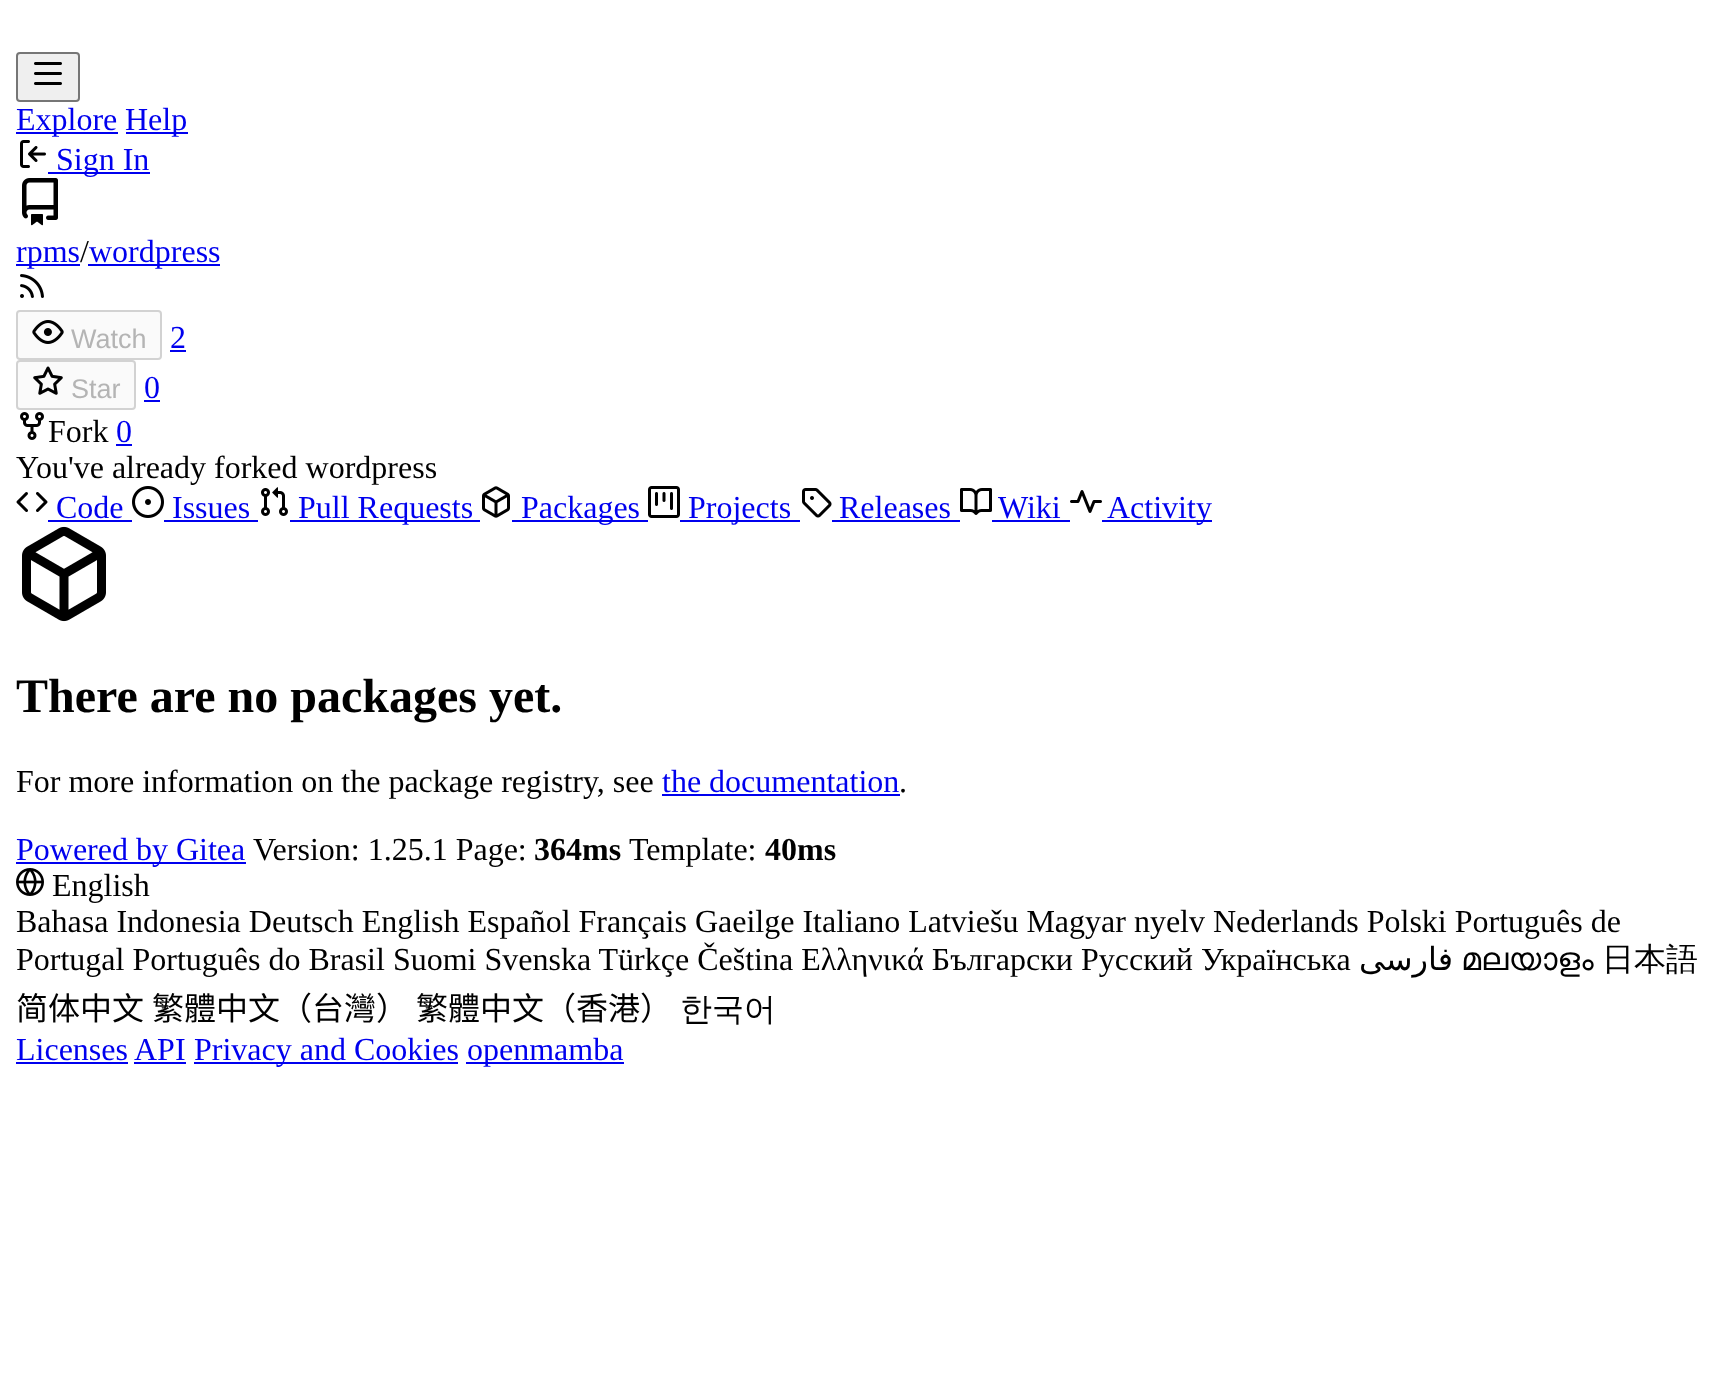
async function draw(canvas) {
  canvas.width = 1717;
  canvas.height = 1380;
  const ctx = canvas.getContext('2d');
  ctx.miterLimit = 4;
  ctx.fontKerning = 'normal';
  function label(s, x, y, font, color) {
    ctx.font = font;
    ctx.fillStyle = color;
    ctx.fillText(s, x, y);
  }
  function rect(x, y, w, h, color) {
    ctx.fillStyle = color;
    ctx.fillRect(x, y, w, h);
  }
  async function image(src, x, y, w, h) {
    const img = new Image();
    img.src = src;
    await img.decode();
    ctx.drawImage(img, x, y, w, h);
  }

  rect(0, 0, 1717, 1380, '#fff');
  ctx.fillStyle = '#efefef';
  ctx.beginPath();
  ctx.roundRect(17, 53, 62, 48, 3);
  ctx.fill();
  ctx.strokeStyle = '#767676';
  ctx.lineWidth = 2;
  ctx.stroke();
  await image('assets/img1.png', 34, 62, 28, 23);
  rect(16, 132, 102, 2, '#00e');
  label('Explore', 16, 130, '32px Liberation Serif', '#00e');
  rect(126, 132, 62, 2, '#00e');
  label('Help', 125, 130, '32px Liberation Serif', '#00e');
  await image('assets/img2.png', 20, 140, 26, 28);
  rect(48, 172, 102, 2, '#00e');
  label('Sign In', 56, 170, '32px Liberation Serif', '#00e');
  await image('assets/img3.png', 22, 178, 36, 48);
  rect(16, 264, 64, 2, '#00e');
  label('rpms', 16, 262, '32px Liberation Serif', '#00e');
  label('/', 80, 262, '32px Liberation Serif', '#000');
  rect(88, 264, 132, 2, '#00e');
  label('wordpress', 89, 262, '32px Liberation Serif', '#00e');
  await image('assets/img4.png', 20, 274, 24, 24);
  ctx.fillStyle = '#fafafa';
  ctx.beginPath();
  ctx.roundRect(17, 311, 144, 48, 3);
  ctx.fill();
  ctx.strokeStyle = '#d2d2d2';
  ctx.stroke();
  await image('assets/img5.png', 32, 320, 32, 24);
  label('Watch', 71, 348, '27px Liberation Sans', '#b4b4b4');
  label('2', 170, 348, '32px Liberation Serif', '#00e');
  rect(170, 350, 16, 2, '#00e');
  ctx.fillStyle = '#fafafa';
  ctx.beginPath();
  ctx.roundRect(17, 361, 118, 48, 3);
  ctx.fill();
  ctx.stroke();
  await image('assets/img6.png', 33, 366, 30, 29);
  label('Star', 71, 398, '27px Liberation Sans', '#b4b4b4');
  label('0', 144, 398, '32px Liberation Serif', '#00e');
  rect(144, 400, 16, 2, '#00e');
  await image('assets/img7.png', 20, 412, 24, 28);
  label('Fork', 48, 442, '32px Liberation Serif', '#000');
  label('0', 116, 442, '32px Liberation Serif', '#00e');
  rect(116, 444, 16, 2, '#00e');
  label('You\'ve already forked wordpress', 16, 478, '32px Liberation Serif', '#000');
  await image('assets/img8.png', 16, 492, 32, 20);
  label('Code', 56, 518, '32px Liberation Serif', '#00e');
  rect(48, 520, 84, 2, '#00e');
  await image('assets/img9.png', 132, 486, 32, 32);
  label('Issues', 172, 518, '32px Liberation Serif', '#00e');
  rect(164, 520, 94, 2, '#00e');
  await image('assets/img10.png', 261, 487, 27, 29);
  rect(290, 520, 190, 2, '#00e');
  label('Pull Requests', 298, 518, '32px Liberation Serif', '#00e');
  await image('assets/img11.png', 482, 486, 28, 32);
  rect(512, 520, 136, 2, '#00e');
  label('Packages', 521, 518, '32px Liberation Serif', '#00e');
  await image('assets/img12.png', 648, 486, 32, 32);
  rect(680, 520, 120, 2, '#00e');
  label('Projects', 688, 518, '32px Liberation Serif', '#00e');
  await image('assets/img13.png', 802, 488, 30, 30);
  label('Releases', 839, 518, '32px Liberation Serif', '#00e');
  rect(832, 520, 128, 2, '#00e');
  await image('assets/img14.png', 960, 488, 32, 27);
  label('Wiki', 998, 518, '32px Liberation Serif', '#00e');
  rect(992, 520, 78, 2, '#00e');
  await image('assets/img15.png', 1070, 490, 32, 23);
  rect(1102, 520, 110, 2, '#00e');
  label('Activity', 1107, 518, '32px Liberation Serif', '#00e');
  await image('assets/img16.png', 22, 526, 84, 96);
  label('There are no packages yet.', 16, 712, 'bold 48px Liberation Serif', '#000');
  label('For more information on the package registry, see', 16, 792, '32px Liberation Serif', '#000');
  label('the documentation', 662, 792, '32px Liberation Serif', '#00e');
  rect(662, 794, 238, 2, '#00e');
  label('.', 899, 792, '32px Liberation Serif', '#000');
  rect(16, 862, 230, 2, '#00e');
  label('Powered by Gitea', 16, 860, '32px Liberation Serif', '#00e');
  label('Version: 1.25.1 Page:', 253, 860, '32px Liberation Serif', '#000');
  label('364ms', 534, 860, 'bold 32px Liberation Serif', '#000');
  label('Template:', 629, 860, '32px Liberation Serif', '#000');
  label('40ms', 765, 860, 'bold 32px Liberation Serif', '#000');
  await image('assets/img17.png', 16, 868, 28, 28);
  label('English', 52, 896, '32px Liberation Serif', '#000');
  label('Bahasa Indonesia Deutsch English Español Français Gaeilge Italiano Latviešu Magyar nyelv Nederlands Polski Português de', 16, 932, '32px Liberation Serif', '#000');
  label('Portugal Português do Brasil Suomi Svenska Türkçe Čeština Ελληνικά Български Русский Українська', 16, 970, '32px Liberation Serif', '#000');
  ctx.direction = 'rtl';
  label('فارسی', 1453, 970, '32px DejaVu Sans', '#000');
  ctx.direction = 'ltr';
  label('മലയാളം', 1461, 970, '32px FreeSans', '#000');
  label('日本語', 1602, 970, '500 32px WenQuanYi Zen Hei', '#000');
  label('简体中文', 16, 1020, '32px Noto Sans CJK SC', '#000');
  label('繁體中文（台灣）', 152, 1020, '32px Noto Sans CJK TC', '#000');
  label('繁體中文（香港）', 416, 1020, '32px Noto Sans CJK TC', '#000');
  label('한국어', 680, 1020, '500 32px WenQuanYi Zen Hei', '#000');
  label('Licenses', 16, 1060, '32px Liberation Serif', '#00e');
  rect(16, 1062, 112, 2, '#00e');
  label('API', 134, 1060, '32px Liberation Serif', '#00e');
  rect(134, 1062, 52, 2, '#00e');
  rect(194, 1062, 264, 2, '#00e');
  label('Privacy and Cookies', 194, 1060, '32px Liberation Serif', '#00e');
  rect(466, 1062, 158, 2, '#00e');
  label('openmamba', 467, 1060, '32px Liberation Serif', '#00e');
}

draw(document.querySelector('canvas'));
